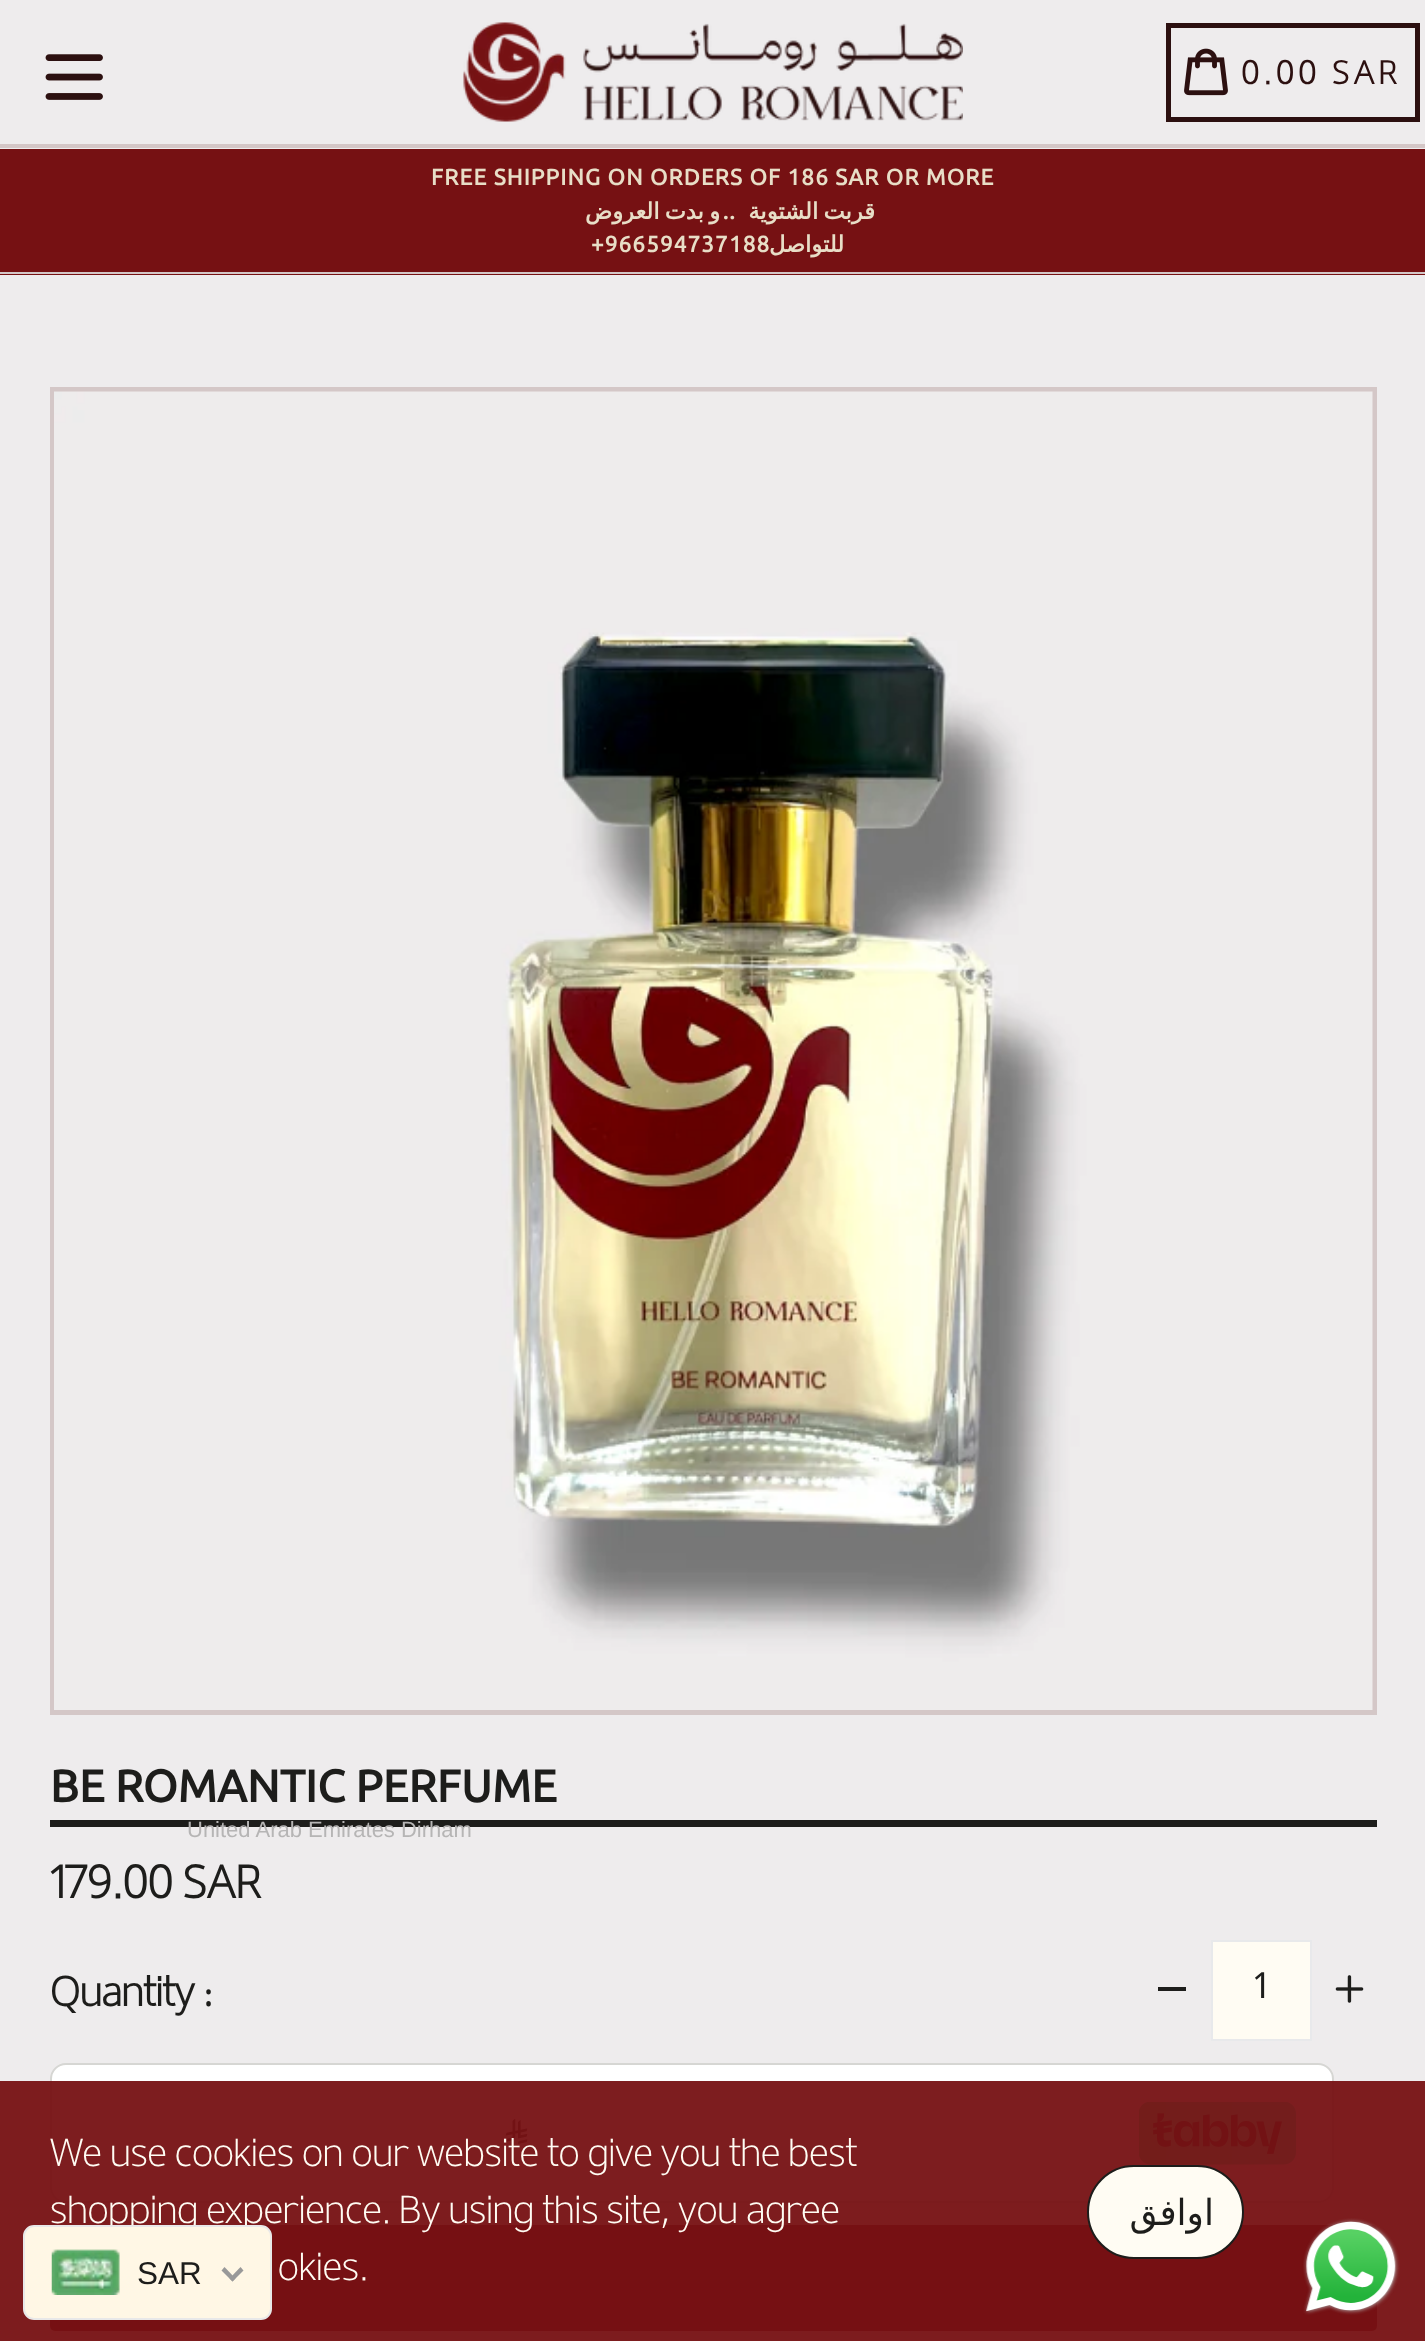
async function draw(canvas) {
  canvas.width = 1425;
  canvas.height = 2341;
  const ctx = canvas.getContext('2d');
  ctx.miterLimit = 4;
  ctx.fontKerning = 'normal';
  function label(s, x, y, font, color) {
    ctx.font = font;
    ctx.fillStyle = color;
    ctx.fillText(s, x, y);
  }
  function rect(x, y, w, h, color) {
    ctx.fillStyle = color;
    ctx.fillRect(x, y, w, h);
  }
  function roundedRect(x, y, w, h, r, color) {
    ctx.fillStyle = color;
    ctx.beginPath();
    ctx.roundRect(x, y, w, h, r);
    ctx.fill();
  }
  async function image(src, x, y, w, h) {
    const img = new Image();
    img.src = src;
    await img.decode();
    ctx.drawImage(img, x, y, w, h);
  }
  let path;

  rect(0, 0, 1425, 2341, '#eeeced');
  rect(0, 144, 1425, 4, '#d4c7c7');
  await image('assets/img1.png', 45, 54, 58, 46);
  await image('assets/img2.png', 463, 22, 500, 100);
  ctx.strokeStyle = '#2c1010';
  ctx.lineWidth = 5;
  ctx.strokeRect(1168.5, 25.5, 249, 94);
  await image('assets/img3.png', 1184, 48, 44, 48);
  ctx.letterSpacing = '4.5px';
  label('0.00 SAR', 1241, 84, 'bold 32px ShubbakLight', '#2c1010');
  rect(0, 149, 1425, 126, '#761113');
  rect(0, 272, 1425, 2, '#d4c7c7');
  ctx.letterSpacing = '1.1px';
  label('FREE SHIPPING ON ORDERS OF 186 SAR OR MORE', 431, 185, 'bold 22.5px Ubuntu', '#e8dec7');
  ctx.wordSpacing = '-3px';
  ctx.direction = 'rtl';
  label('و بدت العروض', 720, 219, 'bold 22.5px DejaVu Sans', '#e8dec7');
  ctx.wordSpacing = '0px';
  label('..', 736, 219, 'bold 22.5px Ubuntu', '#e8dec7');
  ctx.wordSpacing = '-3px';
  label('قربت الشتوية', 875, 219, 'bold 22.5px DejaVu Sans', '#e8dec7');
  ctx.wordSpacing = '0px';
  ctx.direction = 'ltr';
  label('+966594737188', 591, 252, 'bold 22.5px Ubuntu', '#e8dec7');
  ctx.direction = 'rtl';
  label('للتواصل', 844, 252, 'bold 22.5px DejaVu Sans', '#e8dec7');
  ctx.strokeStyle = '#d4c7c7';
  ctx.strokeRect(52.5, 389.5, 1322, 1323);
  await image('assets/img4.png', 54, 391, 1319, 1319);
  rect(50, 1820, 1327, 7, '#1d1d1b');
  ctx.letterSpacing = '0px';
  ctx.direction = 'ltr';
  label('BE ROMANTIC PERFUME', 50, 1802, 'bold 45px Ubuntu', '#1d1d1b');
  label('179.00 SAR', 50, 1898, 'bold 45px ShubbakLight', '#1d1d1b');
  label('Quantity :', 50, 2006, 'bold 40.5px ShubbakLight', '#1d1d1b');
  rect(1158, 1987, 28, 4, '#1d1d1b');
  ctx.fillStyle = '#fffcf3';
  ctx.beginPath();
  ctx.rect(1212, 1941, 99, 99);
  ctx.fill();
  ctx.strokeStyle = '#e8e9eb';
  ctx.lineWidth = 2;
  ctx.stroke();
  label('1', 1252, 1998, '36px Noto Sans Display', '#1d1d1b');
  await image('assets/img5.png', 1335, 1975, 29, 28);
  ctx.fillStyle = '#fff';
  ctx.beginPath();
  ctx.roundRect(51, 2064, 1282, 138, 15);
  ctx.fill();
  ctx.strokeStyle = '#d6d6d3';
  ctx.stroke();
  await image('assets/img6.png', 504, 2118, 24, 26);
  await image('assets/img7.png', 1139, 2102, 157, 63);
  roundedRect(50, 2225, 1327, 106, 5, '#761113');
  rect(0, 2081, 1425, 260, '#761113f2');
  label('We use cookies on our website to give you the best', 50, 2166, '300 38.25px ShubbakLight', '#fffcf3');
  label('shopping experience. By using this site, you agree', 50, 2223, '300 38.25px ShubbakLight', '#fffcf3');
  label('okies.', 278, 2280, '300 38.25px ShubbakLight', '#fffcf3');
  ctx.beginPath();
  ctx.roundRect(1088, 2166, 155, 92, 46);
  ctx.fill();
  ctx.strokeStyle = '#1d1d1b';
  ctx.stroke();
  ctx.letterSpacing = '1.1px';
  ctx.direction = 'rtl';
  label('اوافق', 1214, 2225, '36px DejaVu Sans', '#1d1d1b');
  ctx.fillStyle = '#fff7e5';
  ctx.beginPath();
  ctx.roundRect(24, 2226, 247, 93, 10);
  ctx.fill();
  ctx.strokeStyle = '#e8e8e8';
  ctx.stroke();
  ctx.letterSpacing = '0px';
  ctx.direction = 'ltr';
  label('United Arab Emirates Dirham', 187, 1837, '22px Liberation Sans', '#b6b5b5');
  await image('assets/img8.png', 51, 2249, 69, 46);
  label('SAR', 137, 2284, '31.5px Liberation Sans', '#1d1d1b');
  ctx.fillStyle = '#999';
  path = new Path2D('M240.5 2267L243.5 2270.5L232.5 2281.5L229.5 2278.5Z');
  ctx.fill(path);
  path = new Path2D('M224.5 2267L235.5 2278.5L232.5 2281.5L221.5 2270.5Z');
  ctx.fill(path);
  await image('assets/img9.png', 1303, 2218, 97, 97);
}

draw(document.querySelector('canvas'));
